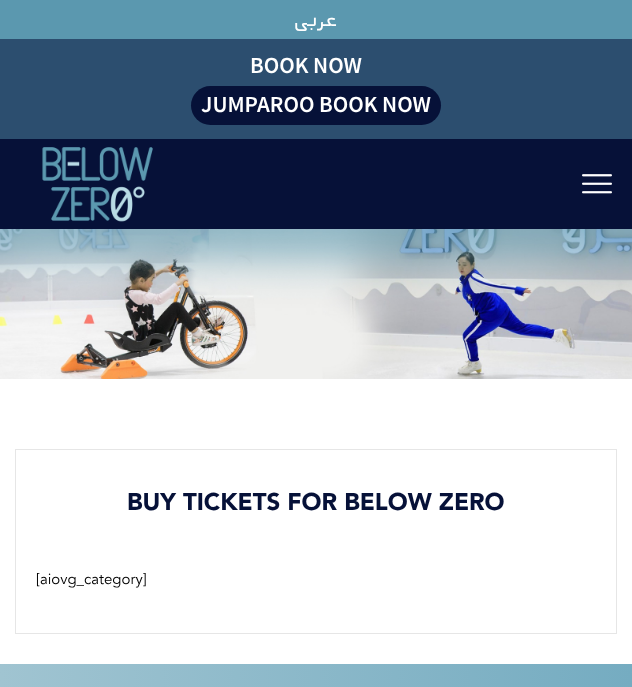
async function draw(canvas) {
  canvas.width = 632;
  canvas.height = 687;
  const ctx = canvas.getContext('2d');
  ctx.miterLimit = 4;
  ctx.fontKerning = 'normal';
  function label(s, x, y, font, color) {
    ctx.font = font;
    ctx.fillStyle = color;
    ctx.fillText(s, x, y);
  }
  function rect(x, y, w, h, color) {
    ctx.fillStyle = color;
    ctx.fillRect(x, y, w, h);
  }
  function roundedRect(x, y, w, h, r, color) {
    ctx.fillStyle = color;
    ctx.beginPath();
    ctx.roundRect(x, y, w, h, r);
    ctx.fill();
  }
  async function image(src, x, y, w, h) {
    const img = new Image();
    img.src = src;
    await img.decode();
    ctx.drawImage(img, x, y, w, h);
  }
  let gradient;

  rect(0, 0, 632, 687, '#fff');
  rect(0, 0, 632, 39, '#5b98af');
  ctx.direction = 'rtl';
  label('عربى', 337, 26, '23px Mada', '#fff');
  rect(0, 39, 632, 100, '#2c4e6f');
  ctx.direction = 'ltr';
  label('BOOK NOW', 250, 73, '600 23px Mada', '#fff');
  roundedRect(191, 86, 250, 39, 19.5, '#061138');
  label('JUMPAROO BOOK NOW', 201, 112, '600 23px Mada', '#fff');
  rect(0, 139, 632, 90, '#061138');
  await image('assets/img1.png', 42, 147, 111, 75);
  await image('assets/img2.png', 582, 174, 30, 20);
  await image('assets/img3.png', 0, 229, 632, 150);
  ctx.strokeStyle = '#e6e6e6';
  ctx.strokeRect(15.5, 449.5, 601, 184);
  label('BUY TICKETS FOR BELOW ZERO', 127, 510, '900 24px Avenir', '#061138');
  label('[aiovg_category]', 36, 584, '15px Avenir', '#000');
  gradient = ctx.createLinearGradient(0, 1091, 632, 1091);
  gradient.addColorStop(0, '#a0c4d1');
  gradient.addColorStop(1, '#75acc1');
  ctx.fillStyle = gradient;
  ctx.fillRect(0, 664, 632, 23);
}

draw(document.querySelector('canvas'));
